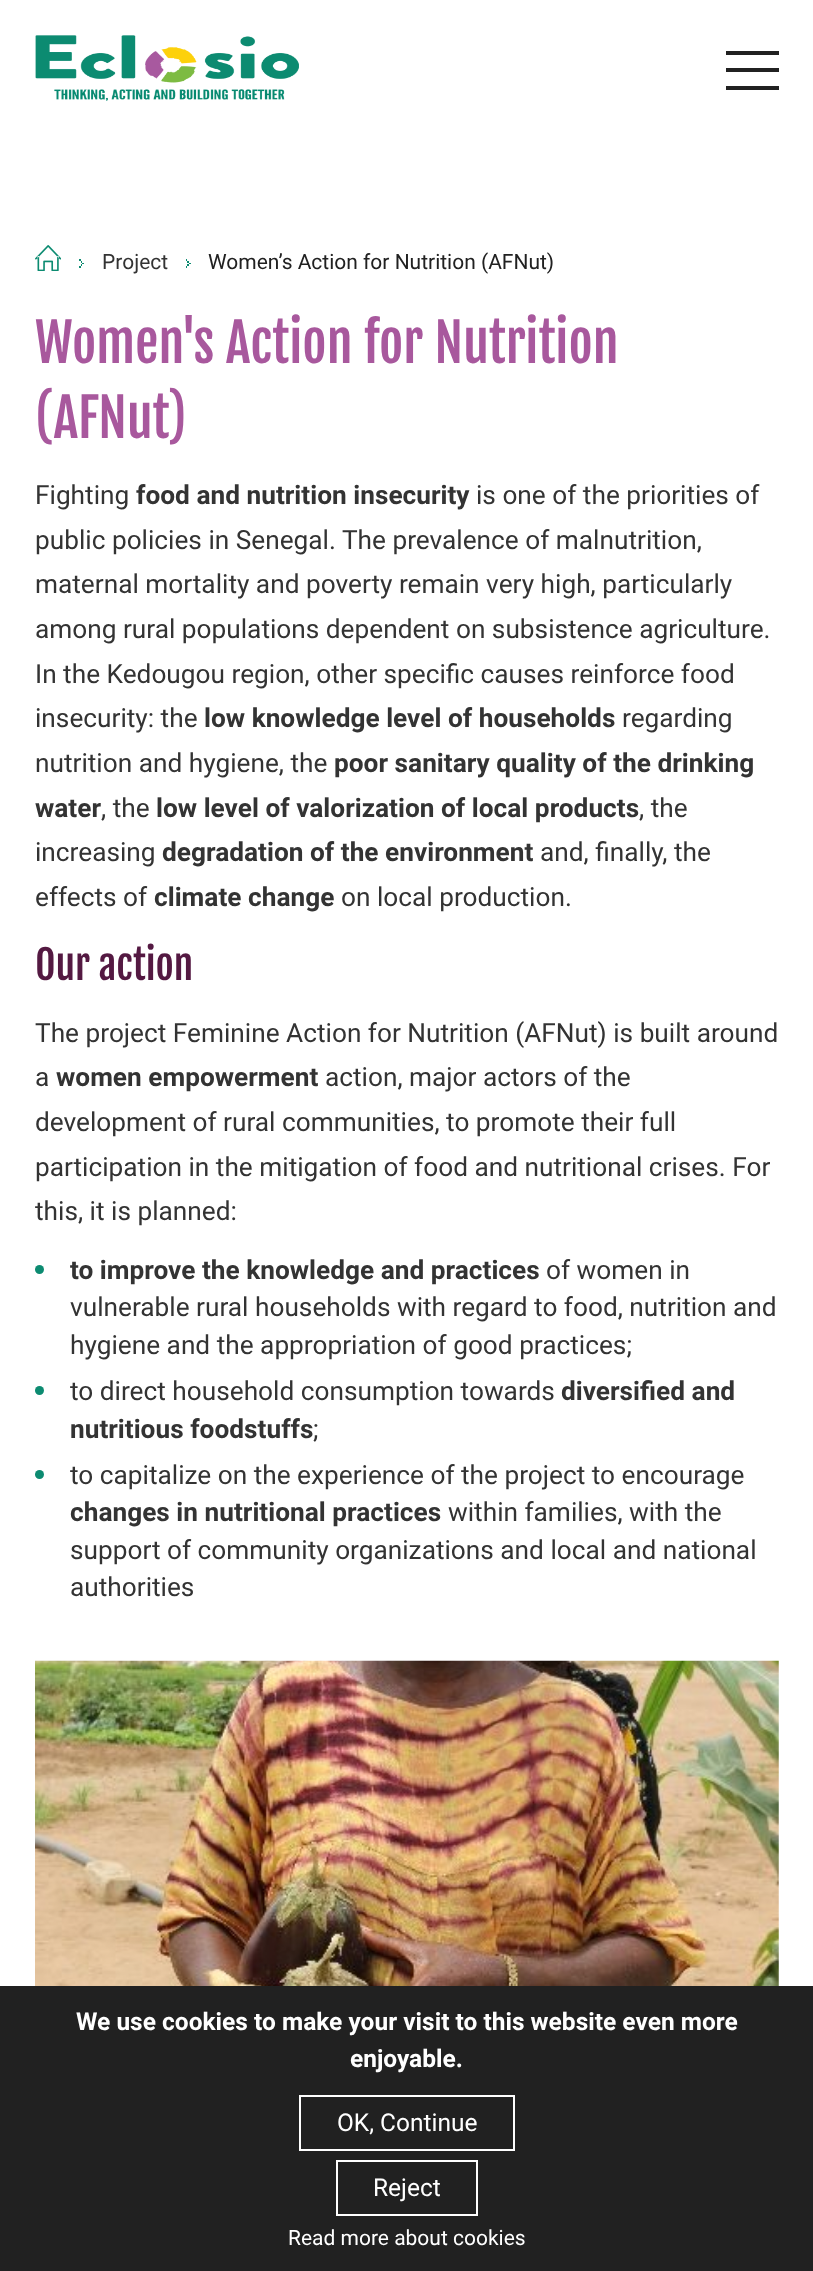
async function draw(canvas) {
  canvas.width = 813;
  canvas.height = 2271;
  const ctx = canvas.getContext('2d');
  ctx.miterLimit = 4;
  ctx.fontKerning = 'normal';
  function label(s, x, y, font, color) {
    ctx.font = font;
    ctx.fillStyle = color;
    ctx.fillText(s, x, y);
  }
  function rect(x, y, w, h, color) {
    ctx.fillStyle = color;
    ctx.fillRect(x, y, w, h);
  }
  async function image(src, x, y, w, h) {
    const img = new Image();
    img.src = src;
    await img.decode();
    ctx.drawImage(img, x, y, w, h);
  }

  rect(0, 0, 813, 2271, '#fff');
  await image('assets/img1.png', 35, 35, 264, 66);
  rect(726, 68, 53, 4, '#212121');
  rect(726, 51, 53, 4, '#212121');
  rect(726, 86, 53, 4, '#212121');
  await image('assets/img2.png', 35, 245, 26, 26);
  await image('assets/img3.png', 79, 259, 5, 9);
  label('Project', 102, 269, '21px Roboto', '#333');
  await image('assets/img4.png', 186, 259, 5, 9);
  label('Women’s Action for Nutrition (AFNut)', 208, 269, '21px Roboto', '#212121');
  label('Women\'s Action for Nutrition', 35, 363, '52.5px Fjalla One', '#a8589d');
  label('(AFNut)', 35, 438, '52.5px Fjalla One', '#a8589d');
  label('Fighting', 35, 504, '26.25px Roboto', '#333');
  label('food and nutrition insecurity', 136, 504, 'bold 26.25px Roboto', '#333');
  label('is one of the priorities of', 476, 504, '26.25px Roboto', '#333');
  label('public policies in Senegal. The prevalence of malnutrition,', 35, 549, '26.25px Roboto', '#333');
  label('maternal mortality and poverty remain very high, particularly', 35, 593, '26.25px Roboto', '#333');
  label('among rural populations dependent on subsistence agriculture.', 35, 638, '26.25px Roboto', '#333');
  label('In the Kedougou region, other specific causes reinforce food', 35, 683, '26.25px Roboto', '#333');
  label('insecurity: the', 35, 727, '26.25px Roboto', '#333');
  label('low knowledge level of households', 204, 727, 'bold 26.25px Roboto', '#333');
  label('regarding', 622, 727, '26.25px Roboto', '#333');
  label('nutrition and hygiene, the', 35, 772, '26.25px Roboto', '#333');
  label('poor sanitary quality of the drinking', 334, 772, 'bold 26.25px Roboto', '#333');
  label('water', 35, 817, 'bold 26.25px Roboto', '#333');
  label(', the', 101, 817, '26.25px Roboto', '#333');
  label('low level of valorization of local products', 156, 817, 'bold 26.25px Roboto', '#333');
  label(', the', 639, 817, '26.25px Roboto', '#333');
  label('increasing', 35, 861, '26.25px Roboto', '#333');
  label('degradation of the environment', 162, 861, 'bold 26.25px Roboto', '#333');
  label('and, finally, the', 540, 861, '26.25px Roboto', '#333');
  label('effects of', 35, 906, '26.25px Roboto', '#333');
  label('climate change', 154, 906, 'bold 26.25px Roboto', '#333');
  label('on local production.', 341, 906, '26.25px Roboto', '#333');
  label('Our action', 35, 980, '39.5px Fjalla One', '#541942');
  label('The project Feminine Action for Nutrition (AFNut) is built around', 35, 1042, '26.25px Roboto', '#333');
  label('a', 35, 1086, '26.25px Roboto', '#333');
  label('women empowerment', 56, 1086, 'bold 26.25px Roboto', '#333');
  label('action, major actors of the', 325, 1086, '26.25px Roboto', '#333');
  label('development of rural communities, to promote their full', 35, 1131, '26.25px Roboto', '#333');
  label('participation in the mitigation of food and nutritional crises. For', 35, 1176, '26.25px Roboto', '#333');
  label('this, it is planned:', 35, 1220, '26.25px Roboto', '#333');
  ctx.fillStyle = '#0c8b71';
  ctx.beginPath();
  ctx.arc(39.5, 1269.5, 4.5, 0, 2 * Math.PI);
  ctx.fill();
  label('to improve the knowledge and practices', 70, 1279, 'bold 26.25px Roboto', '#333');
  label('of women in', 546, 1279, '26.25px Roboto', '#333');
  label('vulnerable rural households with regard to food, nutrition and', 70, 1316, '26.25px Roboto', '#333');
  label('hygiene and the appropriation of good practices;', 70, 1354, '26.25px Roboto', '#333');
  ctx.fillStyle = '#0c8b71';
  ctx.beginPath();
  ctx.arc(39.5, 1390.5, 4.5, 0, 2 * Math.PI);
  ctx.fill();
  label('to direct household consumption towards', 70, 1400, '26.25px Roboto', '#333');
  label('diversified and', 561, 1400, 'bold 26.25px Roboto', '#333');
  label('nutritious foodstuffs', 70, 1438, 'bold 26.25px Roboto', '#333');
  label(';', 313, 1438, '26.25px Roboto', '#333');
  ctx.fillStyle = '#0c8b71';
  ctx.beginPath();
  ctx.arc(39.5, 1474.5, 4.5, 0, 2 * Math.PI);
  ctx.fill();
  label('to capitalize on the experience of the project to encourage', 70, 1484, '26.25px Roboto', '#333');
  label('changes in nutritional practices', 70, 1521, 'bold 26.25px Roboto', '#333');
  label('within families, with the', 448, 1521, '26.25px Roboto', '#333');
  label('support of community organizations and local and national', 70, 1559, '26.25px Roboto', '#333');
  label('authorities', 70, 1596, '26.25px Roboto', '#333');
  await image('assets/img5.png', 35, 1660, 744, 326);
  rect(0, 1986, 813, 285, '#212121');
  label('We use cookies to make your visit to this website even more', 76, 2030, 'bold 24.5px Roboto', '#fff');
  label('enjoyable.', 350, 2067, 'bold 24.5px Roboto', '#fff');
  ctx.strokeStyle = '#fff';
  ctx.lineWidth = 2;
  ctx.strokeRect(300, 2096, 214, 54);
  label('OK, Continue', 337, 2131, '24.5px Roboto', '#fff');
  ctx.strokeRect(337, 2161, 140, 54);
  label('Reject', 373, 2196, '24.5px Roboto', '#fff');
  label('Read more about cookies', 288, 2245, '21px Roboto', '#fff');
}

draw(document.querySelector('canvas'));
